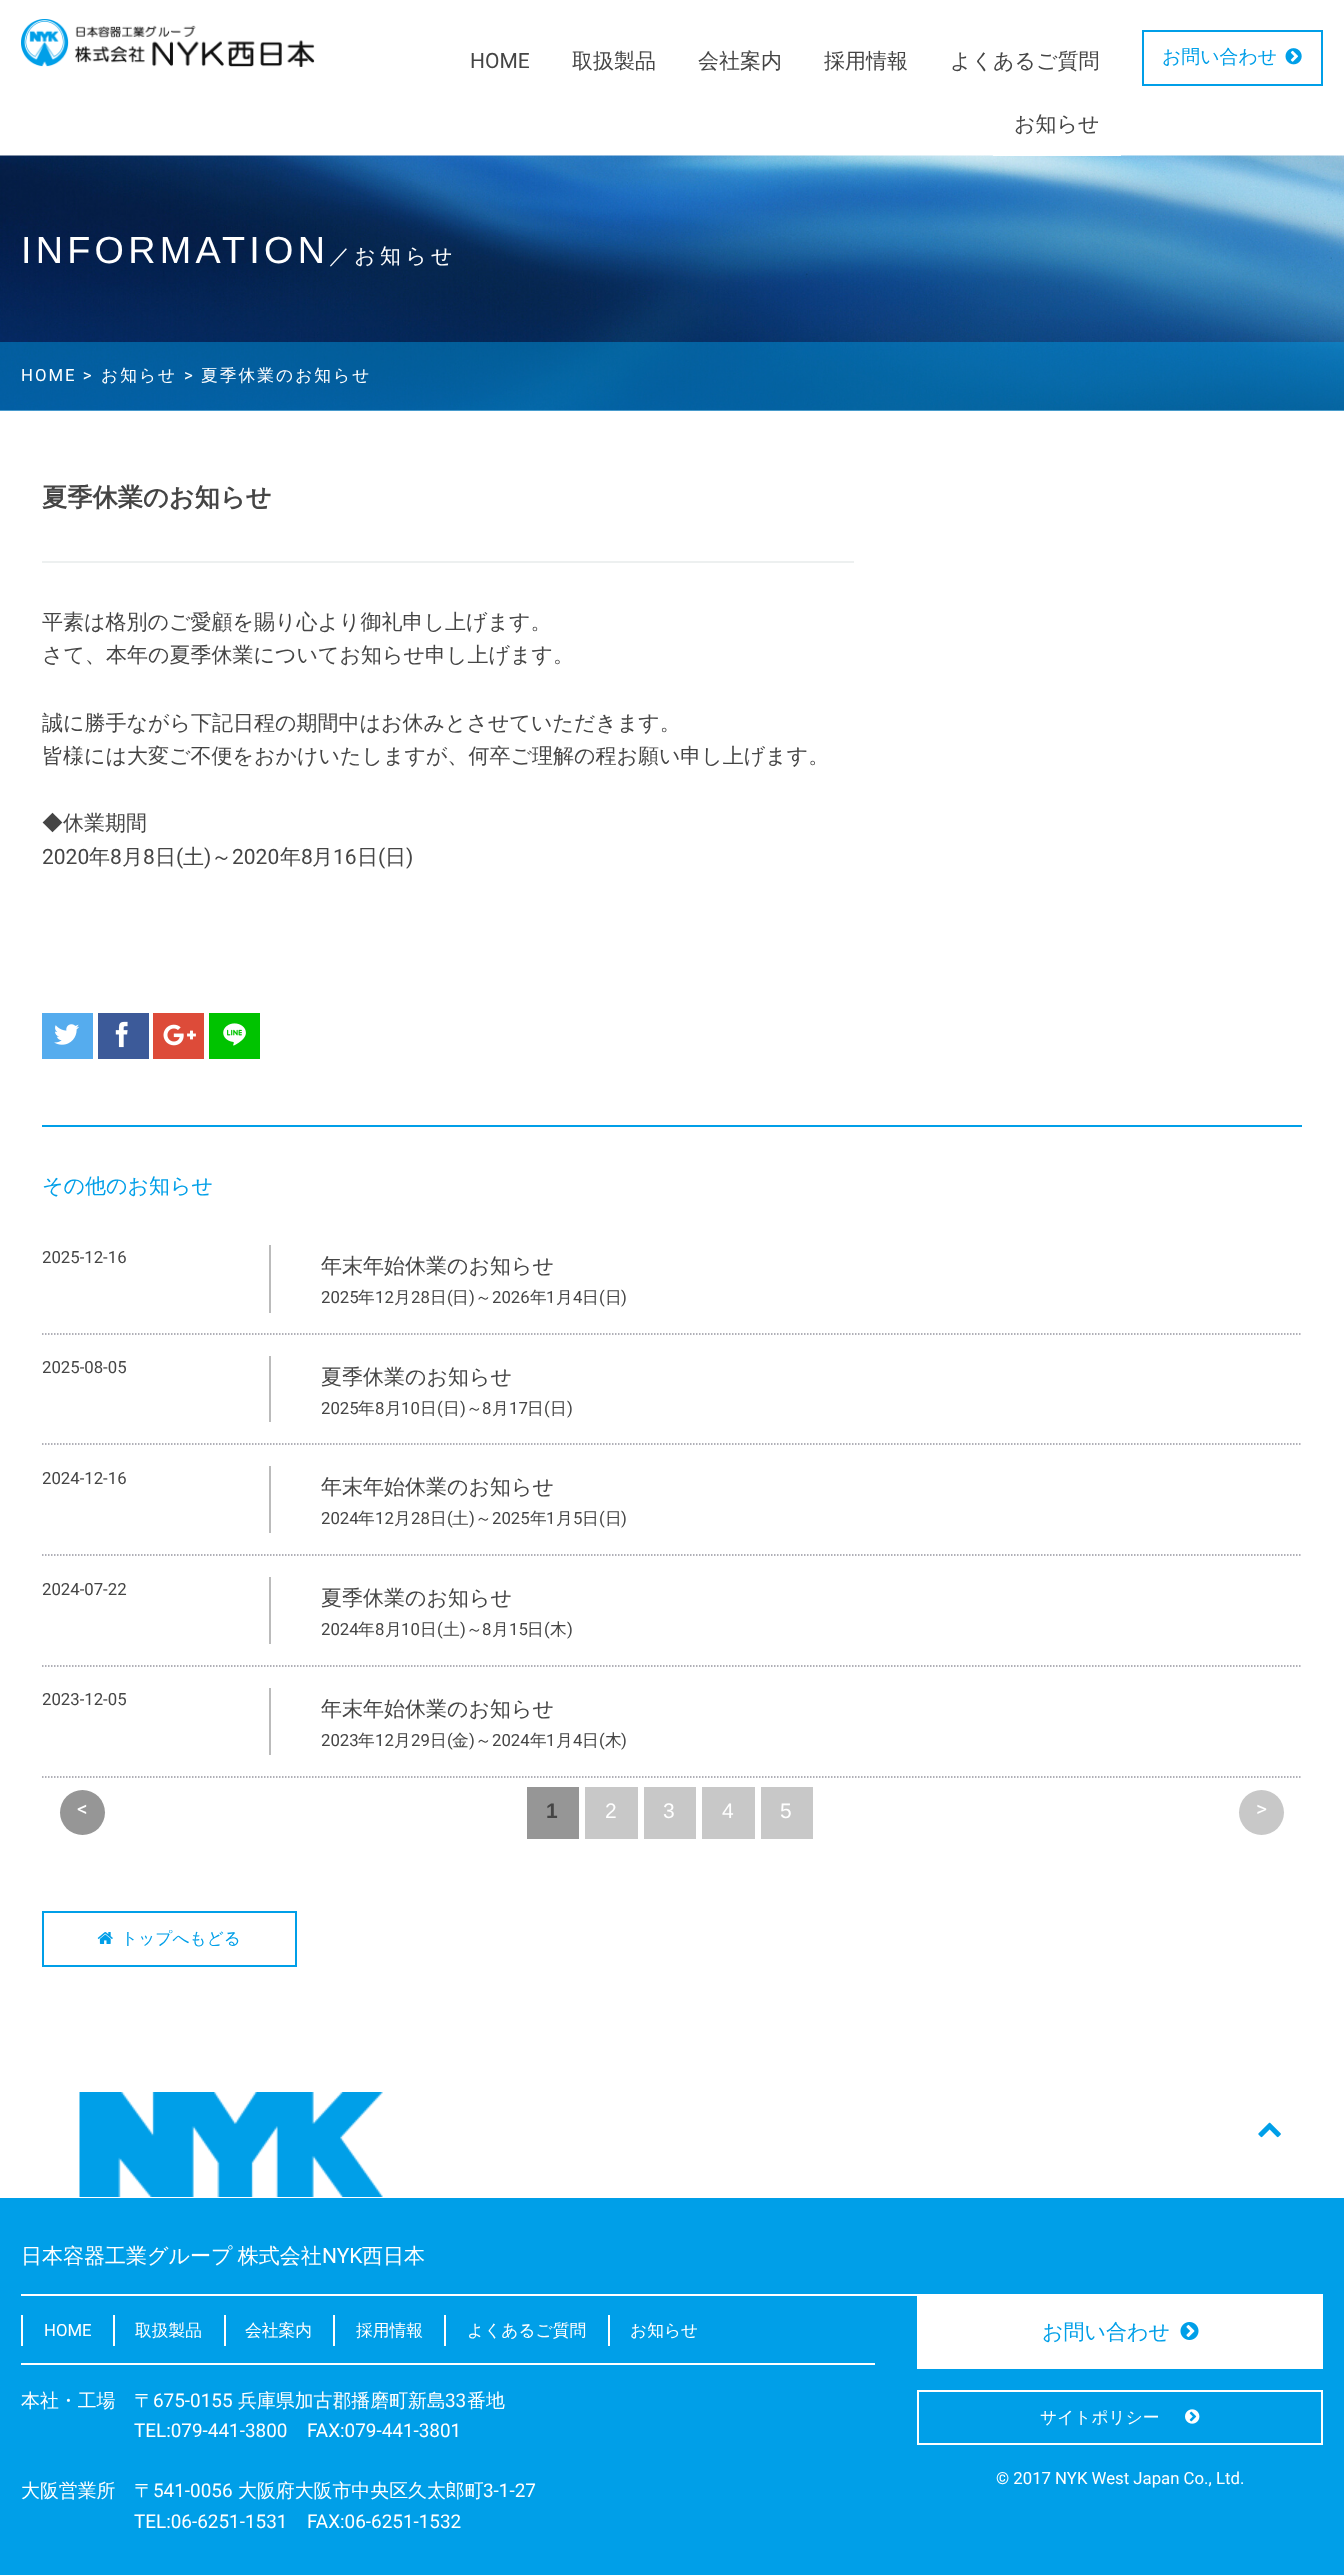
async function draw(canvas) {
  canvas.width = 1344;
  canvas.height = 2575;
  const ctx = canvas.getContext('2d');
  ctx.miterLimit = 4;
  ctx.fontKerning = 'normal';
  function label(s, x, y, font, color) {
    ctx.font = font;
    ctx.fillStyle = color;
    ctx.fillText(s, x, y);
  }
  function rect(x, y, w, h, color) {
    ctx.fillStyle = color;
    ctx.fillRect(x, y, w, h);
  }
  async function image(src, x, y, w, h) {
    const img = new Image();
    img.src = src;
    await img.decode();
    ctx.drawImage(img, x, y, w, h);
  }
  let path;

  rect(0, 0, 1344, 2575, '#fff');
  await image('assets/img1.png', 21, 19, 294, 48);
  label('HOME', 470, 68, '21px Roboto', '#454545');
  label('取扱製品', 572, 68, '500 21px WenQuanYi Zen Hei', '#454545');
  label('会社案内', 698, 68, '500 21px WenQuanYi Zen Hei', '#454545');
  label('採用情報', 824, 68, '500 21px WenQuanYi Zen Hei', '#454545');
  label('よくあるご質問', 950, 68, '500 21px WenQuanYi Zen Hei', '#454545');
  await image('assets/img3.png', 0, 155, 1344, 256);
  rect(993, 155, 128, 1, '#fffffff2');
  label('お知らせ', 1014, 131, '500 21px WenQuanYi Zen Hei', '#454545');
  ctx.strokeStyle = '#009fe8';
  ctx.lineWidth = 2;
  ctx.strokeRect(1143, 31, 179, 54);
  label('お問い合わせ', 1162, 63, '500 18.9px WenQuanYi Zen Hei', '#009fe8');
  await image('assets/img2.png', 1285, 48, 17, 17);
  ctx.letterSpacing = '4.25px';
  label('INFORMATION', 21, 263, '37.75px Liberation Sans', '#fff');
  label('／お知らせ', 329, 263, '500 21px WenQuanYi Zen Hei', '#fff');
  rect(0, 342, 1344, 69, '#009fe873');
  ctx.letterSpacing = '2px';
  label('HOME >', 21, 381, '16.75px Roboto', '#fff');
  label('お知らせ', 101, 381, '500 16.75px WenQuanYi Zen Hei', '#fff');
  label('>', 184, 381, '16.75px Roboto', '#fff');
  label('夏季休業のお知らせ', 201, 381, '500 16.75px WenQuanYi Zen Hei', '#fff');
  rect(42, 561, 812, 2, '#edf0f0');
  ctx.letterSpacing = '0px';
  label('夏季休業のお知らせ', 42, 506, 'bold 25.25px WenQuanYi Zen Hei', '#454545');
  label('平素は格別のご愛顧を賜り心より御礼申し上げます。', 42, 629, '500 21px WenQuanYi Zen Hei', '#454545');
  label('さて、本年の夏季休業についてお知らせ申し上げます。', 42, 662, '500 21px WenQuanYi Zen Hei', '#454545');
  label('誠に勝手ながら下記日程の期間中はお休みとさせていただきます。', 42, 730, '500 21px WenQuanYi Zen Hei', '#454545');
  label('皆様には大変ご不便をおかけいたしますが、何卒ご理解の程お願い申し上げます。', 42, 763, '500 21px WenQuanYi Zen Hei', '#454545');
  label('◆休業期間', 42, 830, '500 21px WenQuanYi Zen Hei', '#454545');
  label('2020', 42, 864, '21px Roboto', '#454545');
  label('年', 89, 864, '500 21px WenQuanYi Zen Hei', '#454545');
  label('8', 110, 864, '21px Roboto', '#454545');
  label('月', 122, 864, '500 21px WenQuanYi Zen Hei', '#454545');
  label('8', 143, 864, '21px Roboto', '#454545');
  label('日', 155, 864, '500 21px WenQuanYi Zen Hei', '#454545');
  label('(', 176, 864, '21px Roboto', '#454545');
  label('土', 183, 864, '500 21px WenQuanYi Zen Hei', '#454545');
  label(')', 204, 864, '21px Roboto', '#454545');
  label('～', 211, 864, '500 21px WenQuanYi Zen Hei', '#454545');
  label('2020', 232, 864, '21px Roboto', '#454545');
  label('年', 280, 864, '500 21px WenQuanYi Zen Hei', '#454545');
  label('8', 301, 864, '21px Roboto', '#454545');
  label('月', 312, 864, '500 21px WenQuanYi Zen Hei', '#454545');
  label('16', 333, 864, '21px Roboto', '#454545');
  label('日', 357, 864, '500 21px WenQuanYi Zen Hei', '#454545');
  label('(', 378, 864, '21px Roboto', '#454545');
  label('日', 385, 864, '500 21px WenQuanYi Zen Hei', '#454545');
  label(')', 406, 864, '21px Roboto', '#454545');
  rect(42, 1013, 51, 46, '#55acee');
  await image('assets/img4.png', 54, 1024, 25, 21);
  rect(98, 1013, 51, 46, '#3c5a99');
  await image('assets/img5.png', 115, 1021, 13, 27);
  rect(153, 1013, 51, 46, '#dd4b39');
  await image('assets/img6.png', 163, 1024, 33, 22);
  rect(209, 1013, 51, 46, '#00c300');
  await image('assets/img7.png', 223, 1023, 23, 23);
  rect(42, 1125, 1260, 2, '#009fe8');
  label('その他のお知らせ', 42, 1193, '500 21px WenQuanYi Zen Hei', '#009fe8');
  path = new Path2D('M42 1334H1302');
  ctx.strokeStyle = '#9696a0';
  ctx.lineWidth = 1.5;
  ctx.setLineDash([1.5, 1.5]);
  ctx.stroke(path);
  label('2025-12-16', 42, 1263, '16.75px Roboto', '#454545');
  rect(269, 1245, 2, 68, '#bbb');
  label('年末年始休業のお知らせ', 321, 1273, '500 21px WenQuanYi Zen Hei', '#454545');
  label('2025', 321, 1303, '16.75px Roboto', '#454545');
  label('年', 358, 1303, '500 16.75px WenQuanYi Zen Hei', '#454545');
  label('12', 375, 1303, '16.75px Roboto', '#454545');
  label('月', 394, 1303, '500 16.75px WenQuanYi Zen Hei', '#454545');
  label('28', 411, 1303, '16.75px Roboto', '#454545');
  label('日', 430, 1303, '500 16.75px WenQuanYi Zen Hei', '#454545');
  label('(', 447, 1303, '16.75px Roboto', '#454545');
  label('日', 452, 1303, '500 16.75px WenQuanYi Zen Hei', '#454545');
  label(')', 469, 1303, '16.75px Roboto', '#454545');
  label('～', 475, 1303, '500 16.75px WenQuanYi Zen Hei', '#454545');
  label('2026', 492, 1303, '16.75px Roboto', '#454545');
  label('年', 530, 1303, '500 16.75px WenQuanYi Zen Hei', '#454545');
  label('1', 546, 1303, '16.75px Roboto', '#454545');
  label('月', 556, 1303, '500 16.75px WenQuanYi Zen Hei', '#454545');
  label('4', 573, 1303, '16.75px Roboto', '#454545');
  label('日', 582, 1303, '500 16.75px WenQuanYi Zen Hei', '#454545');
  label('(', 599, 1303, '16.75px Roboto', '#454545');
  label('日', 605, 1303, '500 16.75px WenQuanYi Zen Hei', '#454545');
  label(')', 621, 1303, '16.75px Roboto', '#454545');
  path = new Path2D('M42 1444H1302');
  ctx.stroke(path);
  label('2025-08-05', 42, 1373, '16.75px Roboto', '#454545');
  rect(269, 1356, 2, 66, '#bbb');
  label('夏季休業のお知らせ', 321, 1384, '500 21px WenQuanYi Zen Hei', '#454545');
  label('2025', 321, 1414, '16.75px Roboto', '#454545');
  label('年', 358, 1414, '500 16.75px WenQuanYi Zen Hei', '#454545');
  label('8', 375, 1414, '16.75px Roboto', '#454545');
  label('月', 385, 1414, '500 16.75px WenQuanYi Zen Hei', '#454545');
  label('10', 401, 1414, '16.75px Roboto', '#454545');
  label('日', 420, 1414, '500 16.75px WenQuanYi Zen Hei', '#454545');
  label('(', 437, 1414, '16.75px Roboto', '#454545');
  label('日', 443, 1414, '500 16.75px WenQuanYi Zen Hei', '#454545');
  label(')', 460, 1414, '16.75px Roboto', '#454545');
  label('～', 466, 1414, '500 16.75px WenQuanYi Zen Hei', '#454545');
  label('8', 482, 1414, '16.75px Roboto', '#454545');
  label('月', 492, 1414, '500 16.75px WenQuanYi Zen Hei', '#454545');
  label('17', 509, 1414, '16.75px Roboto', '#454545');
  label('日', 527, 1414, '500 16.75px WenQuanYi Zen Hei', '#454545');
  label('(', 544, 1414, '16.75px Roboto', '#454545');
  label('日', 550, 1414, '500 16.75px WenQuanYi Zen Hei', '#454545');
  label(')', 567, 1414, '16.75px Roboto', '#454545');
  path = new Path2D('M42 1555H1302');
  ctx.stroke(path);
  label('2024-12-16', 42, 1484, '16.75px Roboto', '#454545');
  rect(269, 1466, 2, 67, '#bbb');
  label('年末年始休業のお知らせ', 321, 1494, '500 21px WenQuanYi Zen Hei', '#454545');
  label('2024', 321, 1524, '16.75px Roboto', '#454545');
  label('年', 358, 1524, '500 16.75px WenQuanYi Zen Hei', '#454545');
  label('12', 375, 1524, '16.75px Roboto', '#454545');
  label('月', 394, 1524, '500 16.75px WenQuanYi Zen Hei', '#454545');
  label('28', 411, 1524, '16.75px Roboto', '#454545');
  label('日', 430, 1524, '500 16.75px WenQuanYi Zen Hei', '#454545');
  label('(', 447, 1524, '16.75px Roboto', '#454545');
  label('土', 452, 1524, '500 16.75px WenQuanYi Zen Hei', '#454545');
  label(')', 469, 1524, '16.75px Roboto', '#454545');
  label('～', 475, 1524, '500 16.75px WenQuanYi Zen Hei', '#454545');
  label('2025', 492, 1524, '16.75px Roboto', '#454545');
  label('年', 530, 1524, '500 16.75px WenQuanYi Zen Hei', '#454545');
  label('1', 546, 1524, '16.75px Roboto', '#454545');
  label('月', 556, 1524, '500 16.75px WenQuanYi Zen Hei', '#454545');
  label('5', 573, 1524, '16.75px Roboto', '#454545');
  label('日', 582, 1524, '500 16.75px WenQuanYi Zen Hei', '#454545');
  label('(', 599, 1524, '16.75px Roboto', '#454545');
  label('日', 605, 1524, '500 16.75px WenQuanYi Zen Hei', '#454545');
  label(')', 621, 1524, '16.75px Roboto', '#454545');
  path = new Path2D('M42 1666H1302');
  ctx.stroke(path);
  label('2024-07-22', 42, 1595, '16.75px Roboto', '#454545');
  rect(269, 1577, 2, 67, '#bbb');
  label('夏季休業のお知らせ', 321, 1605, '500 21px WenQuanYi Zen Hei', '#454545');
  label('2024', 321, 1635, '16.75px Roboto', '#454545');
  label('年', 358, 1635, '500 16.75px WenQuanYi Zen Hei', '#454545');
  label('8', 375, 1635, '16.75px Roboto', '#454545');
  label('月', 385, 1635, '500 16.75px WenQuanYi Zen Hei', '#454545');
  label('10', 401, 1635, '16.75px Roboto', '#454545');
  label('日', 420, 1635, '500 16.75px WenQuanYi Zen Hei', '#454545');
  label('(', 437, 1635, '16.75px Roboto', '#454545');
  label('土', 443, 1635, '500 16.75px WenQuanYi Zen Hei', '#454545');
  label(')', 460, 1635, '16.75px Roboto', '#454545');
  label('～', 466, 1635, '500 16.75px WenQuanYi Zen Hei', '#454545');
  label('8', 482, 1635, '16.75px Roboto', '#454545');
  label('月', 492, 1635, '500 16.75px WenQuanYi Zen Hei', '#454545');
  label('15', 509, 1635, '16.75px Roboto', '#454545');
  label('日', 527, 1635, '500 16.75px WenQuanYi Zen Hei', '#454545');
  label('(', 544, 1635, '16.75px Roboto', '#454545');
  label('木', 550, 1635, '500 16.75px WenQuanYi Zen Hei', '#454545');
  label(')', 567, 1635, '16.75px Roboto', '#454545');
  path = new Path2D('M42 1777H1302');
  ctx.stroke(path);
  label('2023-12-05', 42, 1705, '16.75px Roboto', '#454545');
  rect(269, 1688, 2, 67, '#bbb');
  label('年末年始休業のお知らせ', 321, 1716, '500 21px WenQuanYi Zen Hei', '#454545');
  label('2023', 321, 1746, '16.75px Roboto', '#454545');
  label('年', 358, 1746, '500 16.75px WenQuanYi Zen Hei', '#454545');
  label('12', 375, 1746, '16.75px Roboto', '#454545');
  label('月', 394, 1746, '500 16.75px WenQuanYi Zen Hei', '#454545');
  label('29', 411, 1746, '16.75px Roboto', '#454545');
  label('日', 430, 1746, '500 16.75px WenQuanYi Zen Hei', '#454545');
  label('(', 447, 1746, '16.75px Roboto', '#454545');
  label('金', 452, 1746, '500 16.75px WenQuanYi Zen Hei', '#454545');
  label(')', 469, 1746, '16.75px Roboto', '#454545');
  label('～', 475, 1746, '500 16.75px WenQuanYi Zen Hei', '#454545');
  label('2024', 492, 1746, '16.75px Roboto', '#454545');
  label('年', 530, 1746, '500 16.75px WenQuanYi Zen Hei', '#454545');
  label('1', 546, 1746, '16.75px Roboto', '#454545');
  label('月', 556, 1746, '500 16.75px WenQuanYi Zen Hei', '#454545');
  label('4', 573, 1746, '16.75px Roboto', '#454545');
  label('日', 582, 1746, '500 16.75px WenQuanYi Zen Hei', '#454545');
  label('(', 599, 1746, '16.75px Roboto', '#454545');
  label('木', 605, 1746, '500 16.75px WenQuanYi Zen Hei', '#454545');
  label(')', 621, 1746, '16.75px Roboto', '#454545');
  ctx.fillStyle = '#969696';
  ctx.beginPath();
  ctx.arc(82.5, 1812.5, 22.5, 0, 2 * Math.PI);
  ctx.fill();
  label('<', 77, 1816, '21px Roboto', '#fff');
  rect(527, 1787, 52, 52, '#969696');
  label('1', 546, 1818, 'bold 21px Liberation Sans', '#454545');
  rect(585, 1787, 53, 52, '#c8c8c8');
  label('2', 605, 1818, '21px Liberation Sans', '#fff');
  rect(644, 1787, 52, 52, '#c8c8c8');
  label('3', 663, 1818, '21px Liberation Sans', '#fff');
  rect(702, 1787, 53, 52, '#c8c8c8');
  label('4', 722, 1818, '21px Liberation Sans', '#fff');
  rect(761, 1787, 52, 52, '#c8c8c8');
  label('5', 780, 1818, '21px Liberation Sans', '#fff');
  ctx.fillStyle = '#c8c8c8';
  ctx.beginPath();
  ctx.arc(1261.5, 1812.5, 22.5, 0, 2 * Math.PI);
  ctx.fill();
  label('>', 1256, 1816, '21px Roboto', '#fff');
  ctx.strokeStyle = '#009fe8';
  ctx.lineWidth = 2;
  ctx.setLineDash([]);
  ctx.strokeRect(43, 1912, 253, 54);
  await image('assets/img8.png', 97, 1932, 16, 12);
  label('トップへもどる', 121, 1944, '500 16.75px WenQuanYi Zen Hei', '#009fe8');
  await image('assets/img9.png', 79, 2092, 304, 105);
  await image('assets/img10.png', 1258, 2122, 23, 16);
  rect(0, 2198, 1344, 377, '#009fe8');
  rect(21, 2294, 1302, 2, '#fff');
  ctx.wordSpacing = '-1px';
  label('日本容器工業グループ 株式会社', 21, 2263, '500 21px WenQuanYi Zen Hei', '#fff');
  ctx.wordSpacing = '0px';
  label('NYK', 322, 2263, '21px Roboto', '#fff');
  label('西日本', 362, 2263, '500 21px WenQuanYi Zen Hei', '#fff');
  rect(21, 2363, 854, 2, '#fff');
  rect(21, 2315, 2, 31, '#fff');
  label('HOME', 44, 2336, '16.75px Roboto', '#fff');
  rect(113, 2315, 2, 31, '#fff');
  label('取扱製品', 135, 2336, '500 16.75px WenQuanYi Zen Hei', '#fff');
  rect(224, 2315, 2, 31, '#fff');
  label('会社案内', 245, 2336, '500 16.75px WenQuanYi Zen Hei', '#fff');
  rect(333, 2315, 2, 31, '#fff');
  label('採用情報', 356, 2336, '500 16.75px WenQuanYi Zen Hei', '#fff');
  rect(444, 2315, 2, 31, '#fff');
  label('よくあるご質問', 467, 2336, '500 16.75px WenQuanYi Zen Hei', '#fff');
  rect(608, 2315, 2, 31, '#fff');
  label('お知らせ', 630, 2336, '500 16.75px WenQuanYi Zen Hei', '#fff');
  label('本社・工場　〒', 21, 2407, '500 18.9px WenQuanYi Zen Hei', '#fff');
  label('675-0155', 153, 2407, '18.9px Roboto', '#fff');
  label('兵庫県加古郡播磨町新島', 238, 2407, '500 18.9px WenQuanYi Zen Hei', '#fff');
  label('33', 445, 2407, '18.9px Roboto', '#fff');
  label('番地', 467, 2407, '500 18.9px WenQuanYi Zen Hei', '#fff');
  label('TEL:079-441-3800', 134, 2437, '18.9px Roboto', '#fff');
  label('FAX:079-441-3801', 307, 2437, '18.9px Roboto', '#fff');
  label('大阪営業所　〒', 21, 2497, '500 18.9px WenQuanYi Zen Hei', '#fff');
  label('541-0056', 153, 2497, '18.9px Roboto', '#fff');
  label('大阪府大阪市中央区久太郎町', 238, 2497, '500 18.9px WenQuanYi Zen Hei', '#fff');
  label('3-1-27', 483, 2497, '18.9px Roboto', '#fff');
  label('TEL:06-6251-1531', 134, 2528, '18.9px Roboto', '#fff');
  label('FAX:06-6251-1532', 307, 2528, '18.9px Roboto', '#fff');
  rect(917, 2296, 406, 73, '#fff');
  label('お問い合わせ', 1042, 2339, '500 21px WenQuanYi Zen Hei', '#009fe8');
  await image('assets/img11.png', 1180, 2322, 19, 18);
  ctx.strokeStyle = '#fff';
  ctx.strokeRect(918, 2391, 404, 53);
  label('サイトポリシー', 1040, 2423, '500 16.75px WenQuanYi Zen Hei', '#fff');
  await image('assets/img12.png', 1185, 2409, 15, 15);
  label('© 2017 NYK West Japan Co., Ltd.', 996, 2484, '16.75px Roboto', '#fff');
}

draw(document.querySelector('canvas'));
